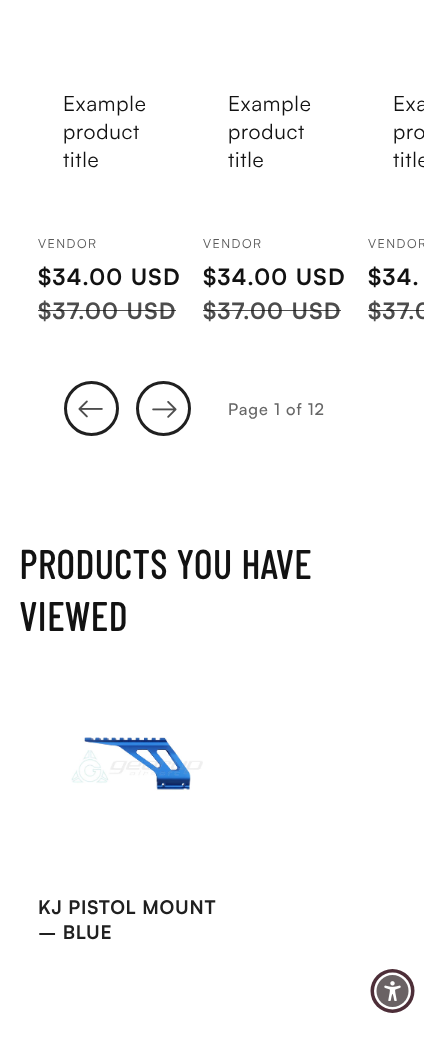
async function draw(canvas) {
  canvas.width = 442;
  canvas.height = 1041;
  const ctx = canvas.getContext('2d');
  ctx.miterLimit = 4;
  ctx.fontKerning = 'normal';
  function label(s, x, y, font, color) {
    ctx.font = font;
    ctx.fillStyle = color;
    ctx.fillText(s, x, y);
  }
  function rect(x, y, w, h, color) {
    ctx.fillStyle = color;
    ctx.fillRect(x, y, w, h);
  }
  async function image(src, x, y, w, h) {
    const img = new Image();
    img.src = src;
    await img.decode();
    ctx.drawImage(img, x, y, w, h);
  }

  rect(0, 0, 442, 1041, '#fff');
  ctx.letterSpacing = '0.75px';
  label('Example', 63, 111, '21px Satoshi', '#121212');
  label('product', 63, 139, '21px Satoshi', '#121212');
  label('title', 63, 167, '21px Satoshi', '#121212');
  ctx.letterSpacing = '1.5px';
  label('VENDOR', 38, 248, '12.5px Satoshi', '#595959');
  ctx.letterSpacing = '1.25px';
  label('$34.00 USD', 38, 285, 'bold 22.5px Satoshi', '#121212');
  label('$37.00 USD', 38, 319, 'bold 22.5px Satoshi', '#4d4d4d');
  rect(38, 310, 138, 1, '#121212bf');
  ctx.letterSpacing = '0.75px';
  label('Example', 228, 111, '21px Satoshi', '#121212');
  label('product', 228, 139, '21px Satoshi', '#121212');
  label('title', 228, 167, '21px Satoshi', '#121212');
  ctx.letterSpacing = '1.5px';
  label('VENDOR', 203, 248, '12.5px Satoshi', '#595959');
  ctx.letterSpacing = '1.25px';
  label('$34.00 USD', 203, 285, 'bold 22.5px Satoshi', '#121212');
  label('$37.00 USD', 203, 319, 'bold 22.5px Satoshi', '#4d4d4d');
  rect(203, 310, 138, 1, '#121212bf');
  ctx.save();
  ctx.beginPath();
  ctx.rect(19, 51, 405, 293);
  ctx.clip();
  ctx.letterSpacing = '0.75px';
  label('Exa', 393, 111, '21px Satoshi', '#121212');
  label('pro', 393, 139, '21px Satoshi', '#121212');
  label('title', 393, 167, '21px Satoshi', '#121212');
  ctx.letterSpacing = '1.5px';
  label('VENDOR', 368, 248, '12.5px Satoshi', '#595959');
  ctx.restore();
  label('$34.', 368, 285, 'bold 22.5px Satoshi', '#121212');
  ctx.save();
  ctx.beginPath();
  ctx.rect(19, 51, 405, 293);
  ctx.clip();
  label('$37.0', 368, 319, 'bold 22.5px Satoshi', '#4d4d4d');
  ctx.restore();
  rect(368, 310, 56, 1, '#121212bf');
  ctx.beginPath();
  ctx.arc(91.5, 408.5, 26, 0, 2 * Math.PI);
  ctx.strokeStyle = '#202020';
  ctx.lineWidth = 3;
  ctx.stroke();
  await image('assets/img1.png', 78, 400, 25, 18);
  ctx.beginPath();
  ctx.arc(163.5, 408.5, 26, 0, 2 * Math.PI);
  ctx.stroke();
  await image('assets/img2.png', 152, 401, 25, 17);
  ctx.letterSpacing = '0.9px';
  label('Page 1 of 12', 228, 415, '500 16.25px Satoshi', '#666');
  ctx.letterSpacing = '0.75px';
  label('PRODUCTS YOU HAVE', 19, 579, 'bold 40px Barlow Condensed', '#121212');
  label('VIEWED', 19, 631, 'bold 40px Barlow Condensed', '#121212');
  await image('assets/img3.png', 71, 737, 132, 54);
  label('KJ PISTOL MOUNT', 38, 914, 'bold 18.75px Satoshi', '#202020');
  label('– BLUE', 38, 939, 'bold 18.75px Satoshi', '#202020');
  ctx.fillStyle = '#4d2e38';
  ctx.beginPath();
  ctx.arc(392.5, 991, 22, 0, 2 * Math.PI);
  ctx.fill();
  ctx.fillStyle = '#fff';
  ctx.beginPath();
  ctx.arc(392.5, 991, 18.5, 0, 2 * Math.PI);
  ctx.fill();
  ctx.fillStyle = '#6a6264';
  ctx.beginPath();
  ctx.arc(392.5, 991, 16, 0, 2 * Math.PI);
  ctx.fill();
  await image('assets/img4.png', 384, 981, 17, 20);
}

draw(document.querySelector('canvas'));
